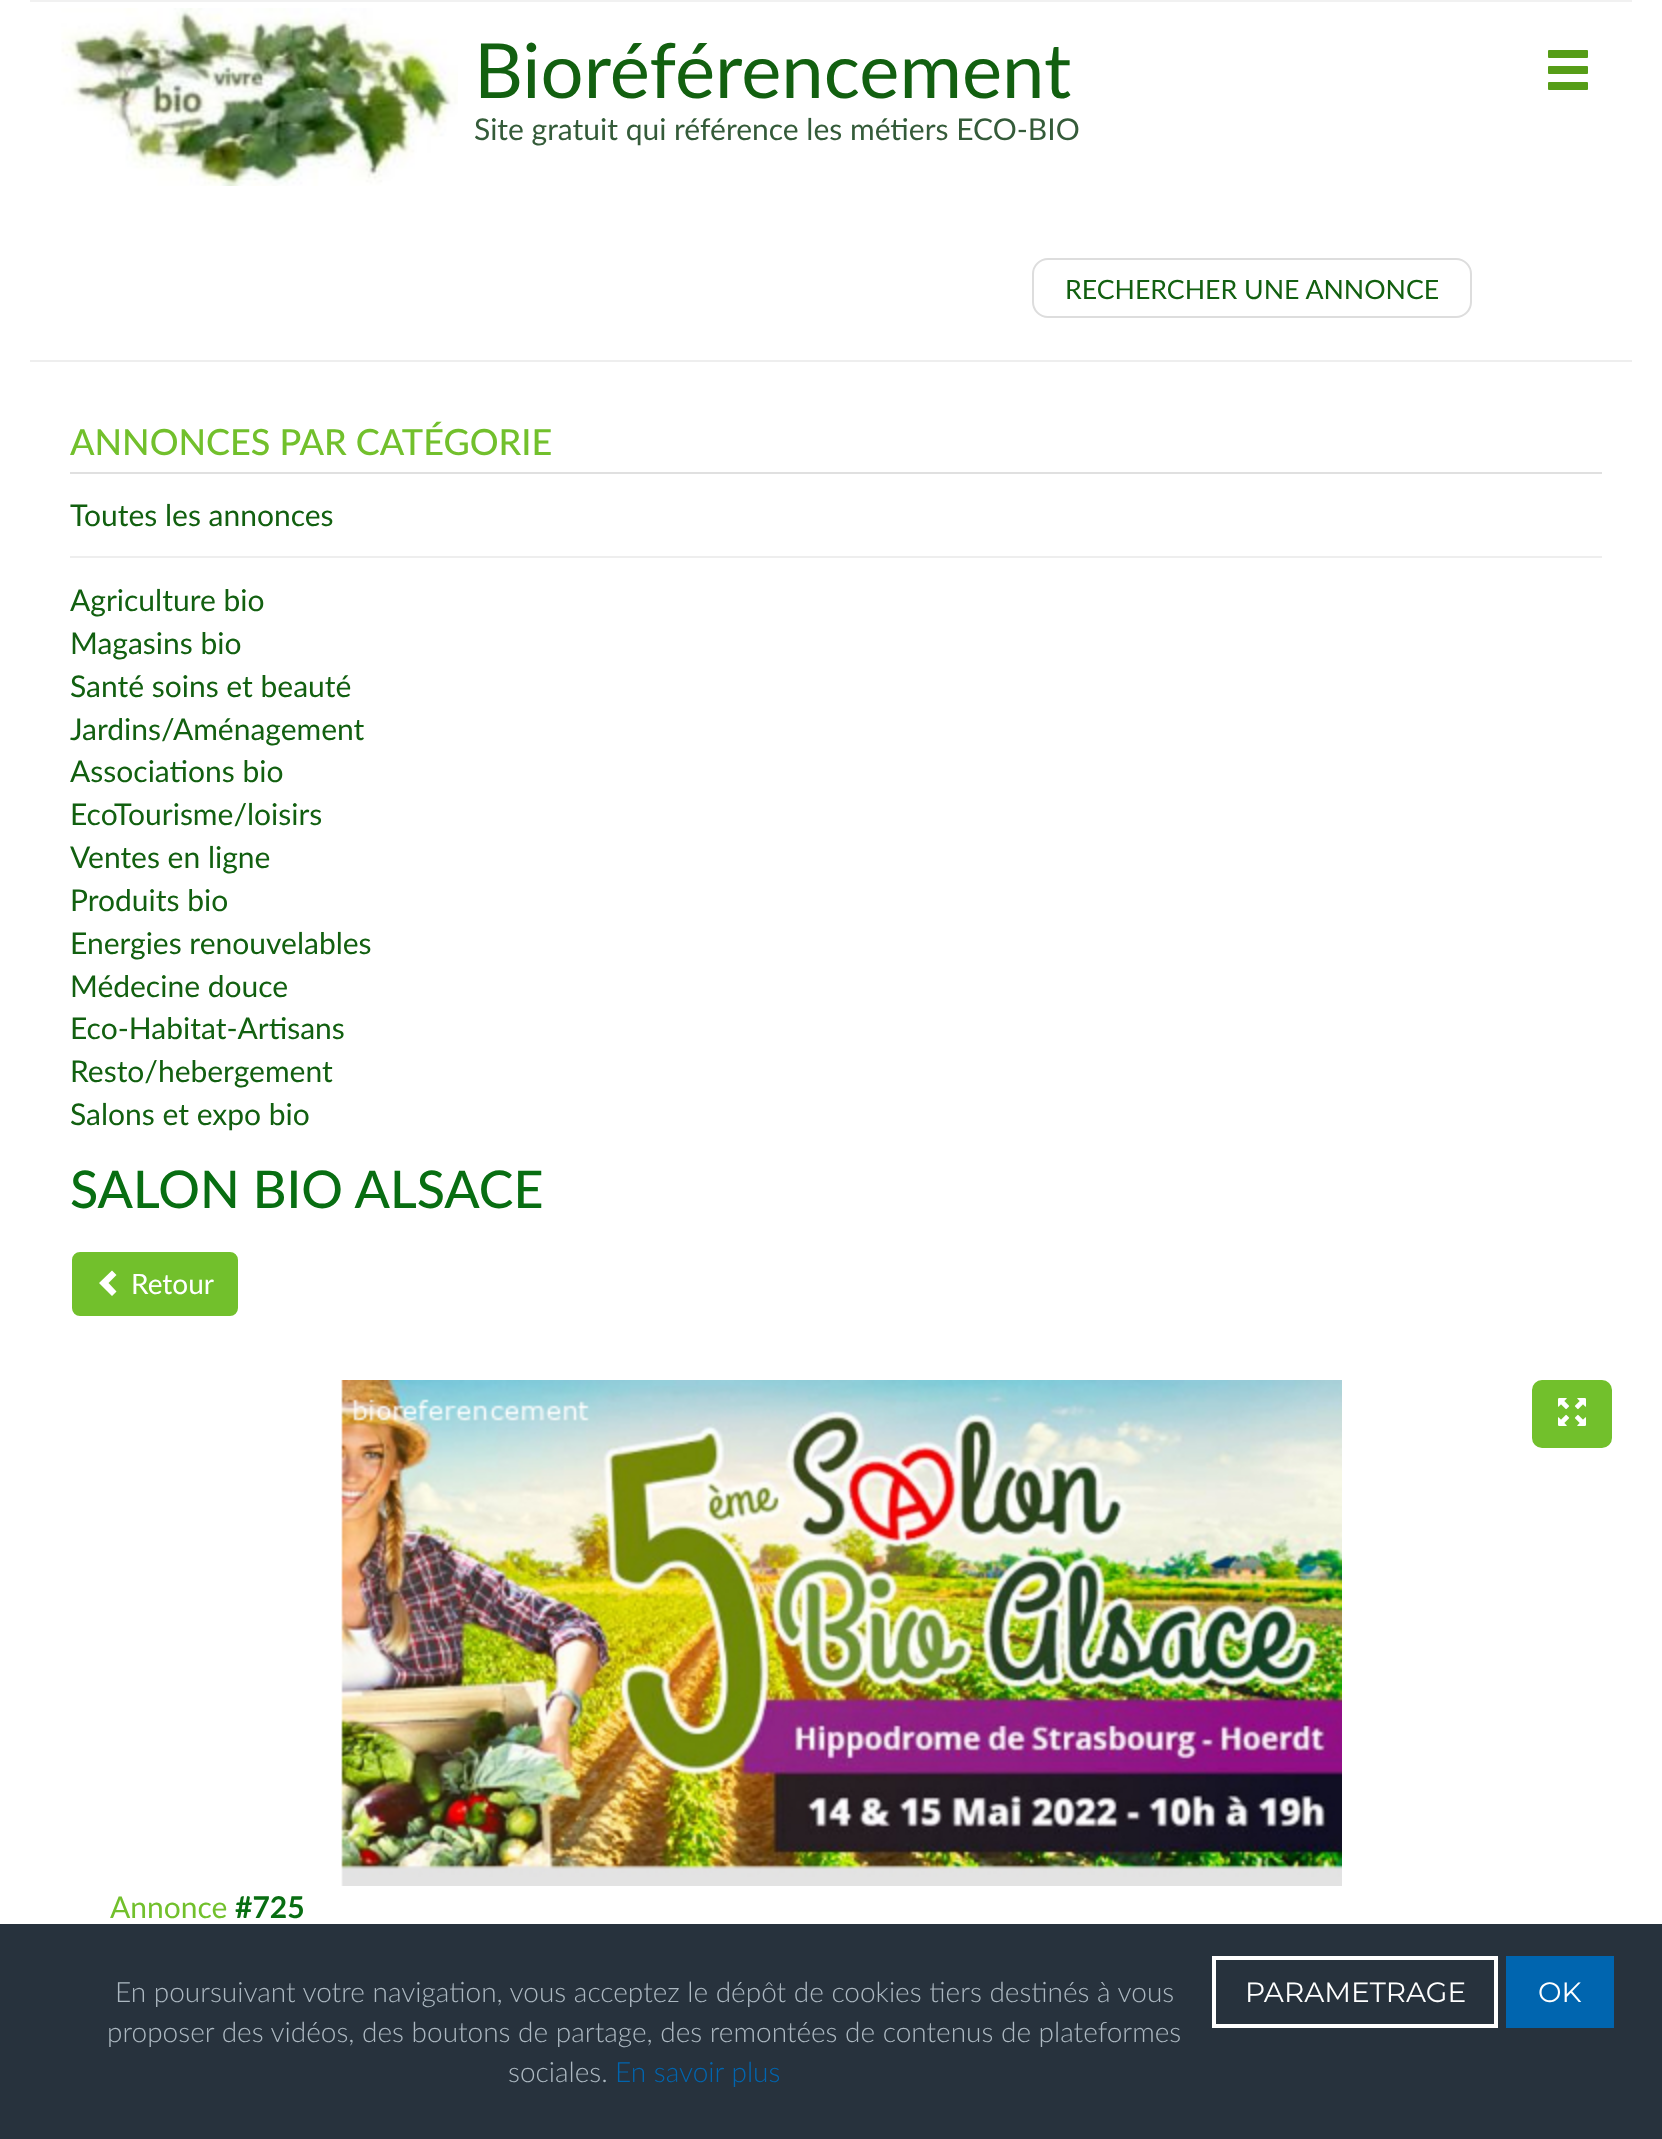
async function draw(canvas) {
  canvas.width = 1662;
  canvas.height = 2139;
  const ctx = canvas.getContext('2d');
  ctx.miterLimit = 4;
  ctx.fontKerning = 'normal';
  function label(s, x, y, font, color) {
    ctx.font = font;
    ctx.fillStyle = color;
    ctx.fillText(s, x, y);
  }
  function rect(x, y, w, h, color) {
    ctx.fillStyle = color;
    ctx.fillRect(x, y, w, h);
  }
  async function image(src, x, y, w, h) {
    const img = new Image();
    img.src = src;
    await img.decode();
    ctx.drawImage(img, x, y, w, h);
  }
  let path;

  rect(0, 0, 1662, 2139, '#fff');
  rect(30, 0, 1602, 2, '#f1f1f1');
  await image('assets/img1.png', 61, 8, 397, 178);
  label('Bioréférencement', 474, 98, '76px Lato', '#126010');
  label('Site gratuit qui référence les métiers ECO-BIO', 474, 140, '30px Lato', '#345b39');
  await image('assets/img2.png', 1548, 50, 40, 40);
  ctx.beginPath();
  ctx.roundRect(1033, 259, 438, 58, 15);
  ctx.strokeStyle = '#ddd';
  ctx.lineWidth = 2;
  ctx.stroke();
  label('RECHERCHER UNE ANNONCE', 1065, 299, '26.7px Lato', '#126010');
  rect(30, 360, 1602, 2, '#eee');
  rect(70, 472, 1532, 2, '#e0e0e0');
  label('ANNONCES PAR CATÉGORIE', 70, 455, '500 36px Lato', '#72c02c');
  label('Toutes les annonces', 70, 526, '30px Lato', '#126010');
  rect(70, 556, 1532, 2, '#eee');
  label('Agriculture bio', 70, 611, '30px Lato', '#126010');
  label('Magasins bio', 70, 654, '30px Lato', '#126010');
  label('Santé soins et beauté', 70, 697, '30px Lato', '#126010');
  label('Jardins/Aménagement', 70, 740, '30px Lato', '#126010');
  label('Associations bio', 70, 782, '30px Lato', '#126010');
  label('EcoTourisme/loisirs', 70, 825, '30px Lato', '#126010');
  label('Ventes en ligne', 70, 868, '30px Lato', '#126010');
  label('Produits bio', 70, 911, '30px Lato', '#126010');
  label('Energies renouvelables', 70, 954, '30px Lato', '#126010');
  label('Médecine douce', 70, 997, '30px Lato', '#126010');
  label('Eco-Habitat-Artisans', 70, 1039, '30px Lato', '#126010');
  label('Resto/hebergement', 70, 1082, '30px Lato', '#126010');
  label('Salons et expo bio', 70, 1125, '30px Lato', '#126010');
  label('SALON BIO ALSACE', 70, 1208, '500 52px Lato', '#086e12');
  ctx.fillStyle = '#72c02c';
  ctx.beginPath();
  ctx.roundRect(71, 1251, 168, 66, 9);
  ctx.fill();
  ctx.strokeStyle = '#fff';
  ctx.stroke();
  ctx.fillStyle = '#fff';
  path = new Path2D('M116.5 1275L108.5 1283L116.5 1291.5L112 1296L99 1283L112 1270.5Z');
  ctx.fill(path);
  label('Retour', 131, 1294, '28px Lato', '#fff');
  await image('assets/img3.png', 341, 1380, 1001, 506);
  ctx.fillStyle = '#72c02c';
  ctx.beginPath();
  ctx.roundRect(1533, 1381, 78, 66, 9);
  ctx.fill();
  ctx.strokeStyle = '#72c02c';
  ctx.stroke();
  await image('assets/img4.png', 1558, 1398, 28, 28);
  label('Annonce', 110, 1918, '30px Lato', '#72c02c');
  label('#725', 235, 1918, 'bold 30px Lato', '#086e12');
  rect(0, 1924, 1662, 215, '#27323d');
  label('En poursuivant votre navigation, vous acceptez le dépôt de cookies tiers destinés à vous', 115, 2002, '300 28px Lato', '#acb8c1');
  label('proposer des vidéos, des boutons de partage, des remontées de contenus de plateformes', 107, 2042, '300 28px Lato', '#acb8c1');
  label('sociales.', 508, 2082, '300 28px Lato', '#acb8c1');
  label('En savoir plus', 615, 2082, '300 28px Lato', '#0065af');
  ctx.strokeStyle = '#fff';
  ctx.lineWidth = 4;
  ctx.strokeRect(1214, 1958, 282, 68);
  label('PARAMETRAGE', 1245, 2002, '28px Montserrat', '#fff');
  rect(1506, 1956, 108, 72, '#0065af');
  label('OK', 1538, 2002, '28px Montserrat', '#fff');
}

draw(document.querySelector('canvas'));
